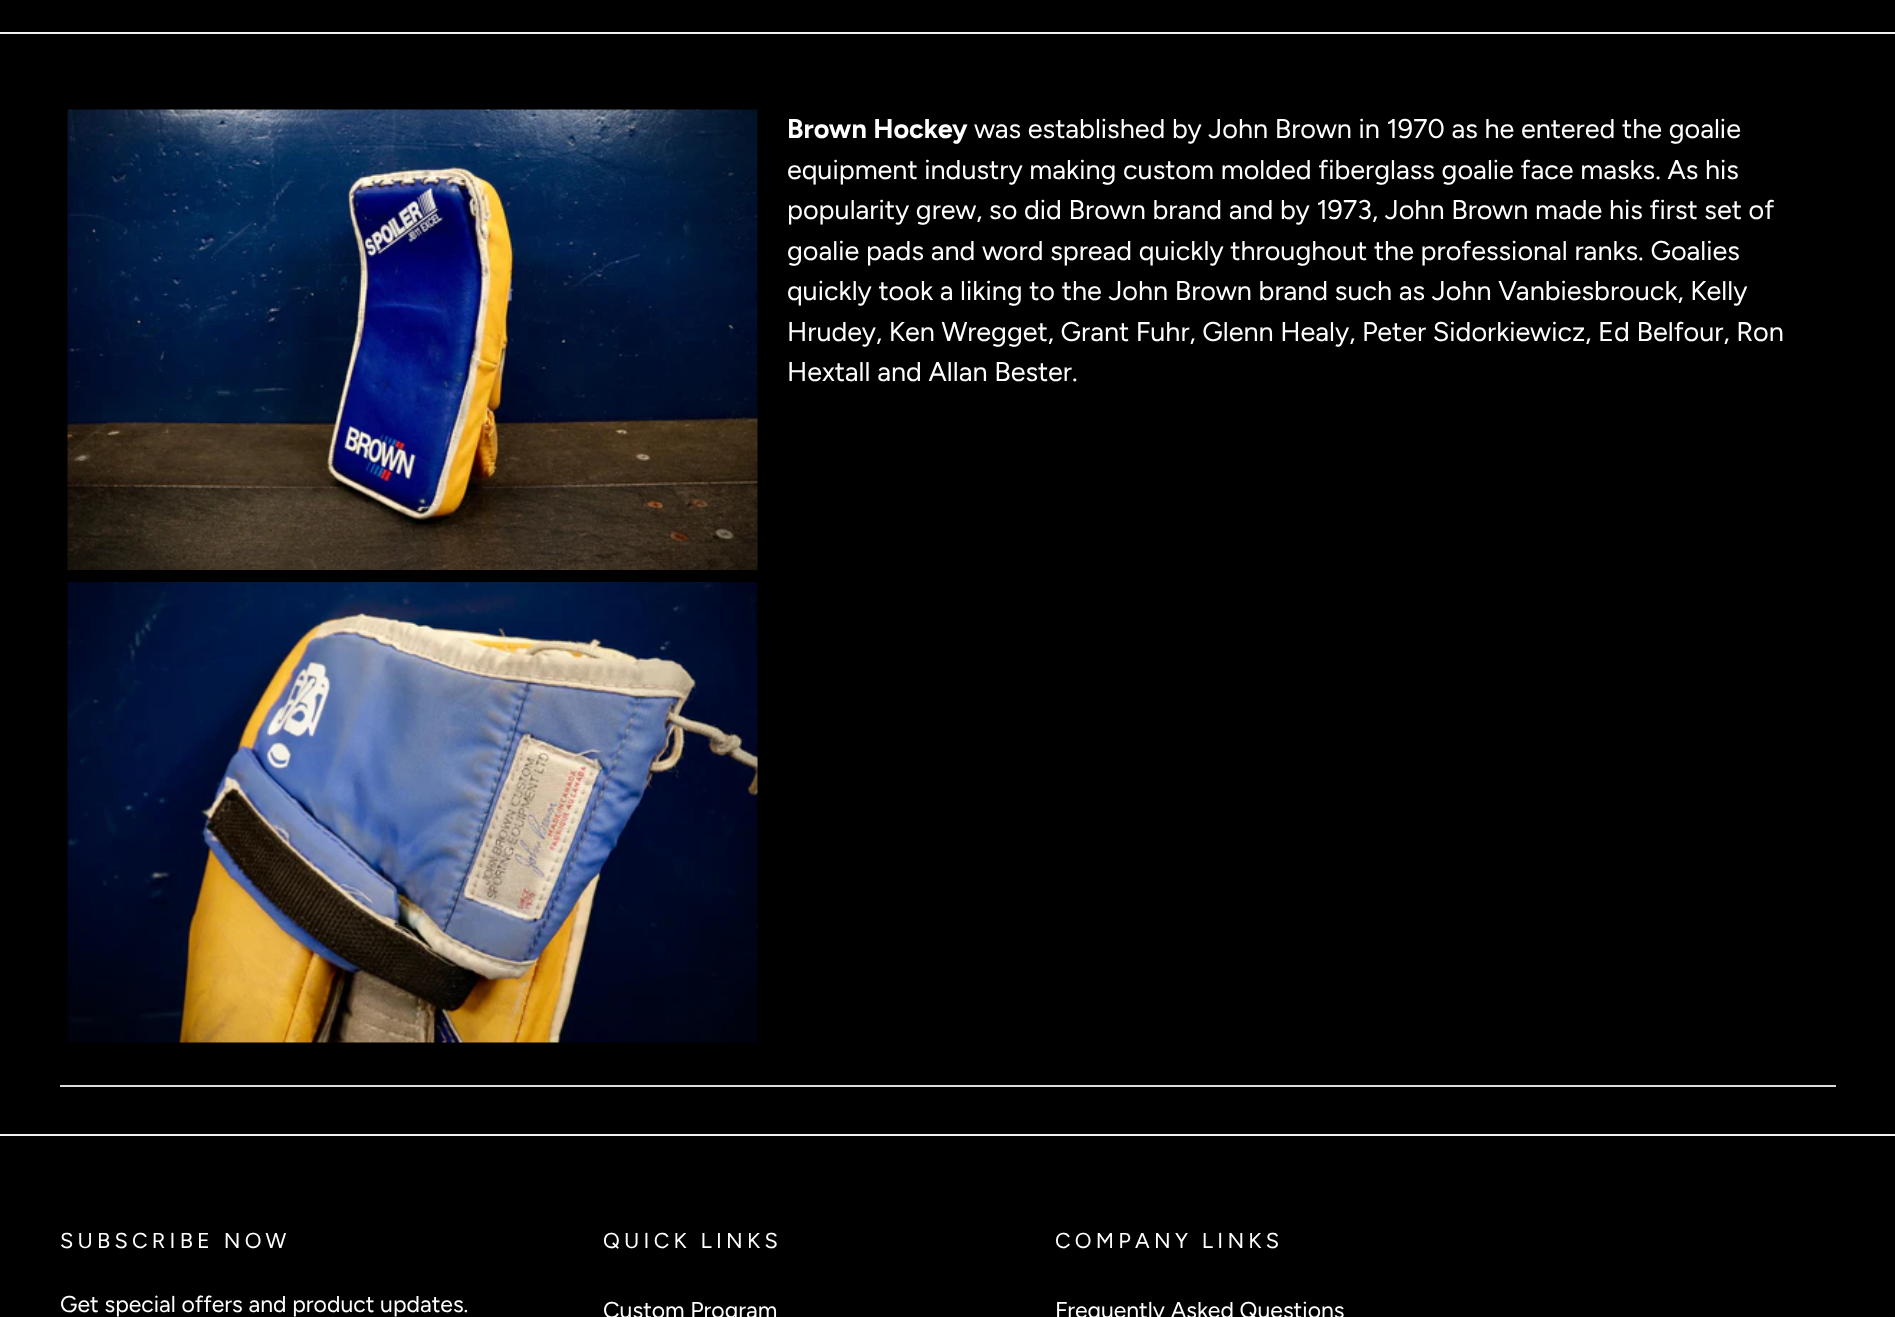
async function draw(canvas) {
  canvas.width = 1895;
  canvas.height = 1317;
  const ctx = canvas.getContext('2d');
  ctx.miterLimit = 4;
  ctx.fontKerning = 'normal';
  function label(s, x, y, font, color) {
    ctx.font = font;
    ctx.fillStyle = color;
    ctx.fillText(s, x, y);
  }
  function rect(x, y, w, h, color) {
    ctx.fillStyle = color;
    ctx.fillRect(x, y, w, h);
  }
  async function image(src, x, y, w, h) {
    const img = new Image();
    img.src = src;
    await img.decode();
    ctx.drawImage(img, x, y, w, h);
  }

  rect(0, 0, 1895, 1317, '#000');
  rect(0, 32, 1895, 2, '#f2f2f2');
  rect(60, 1085, 1776, 2, '#dcdcdc');
  await image('assets/img1.png', 67, 109, 691, 461);
  await image('assets/img2.png', 67, 582, 691, 461);
  label('Brown Hockey', 787, 138, 'bold 27px Figtree', '#fff');
  label('was established by John Brown in 1970 as he entered the goalie', 974, 138, '27px Figtree', '#fff');
  label('equipment industry making custom molded fiberglass goalie face masks. As his', 787, 179, '27px Figtree', '#fff');
  label('popularity grew, so did Brown brand and by 1973, John Brown made his first set of', 787, 219, '27px Figtree', '#fff');
  label('goalie pads and word spread quickly throughout the professional ranks. Goalies', 787, 260, '27px Figtree', '#fff');
  label('quickly took a liking to the John Brown brand such as John Vanbiesbrouck, Kelly', 787, 300, '27px Figtree', '#fff');
  label('Hrudey, Ken Wregget, Grant Fuhr, Glenn Healy, Peter Sidorkiewicz, Ed Belfour, Ron', 787, 341, '27px Figtree', '#fff');
  label('Hextall and Allan Bester.', 787, 381, '27px Figtree', '#fff');
  rect(0, 1134, 1895, 2, '#f2f2f2');
  ctx.letterSpacing = '4.25px';
  label('SUBSCRIBE NOW', 60, 1248, '21.6px Figtree', '#fff');
  ctx.letterSpacing = '0px';
  label('Get special offers and product updates.', 60, 1312, '23px Figtree', '#fff');
  ctx.letterSpacing = '4.25px';
  label('QUICK LINKS', 603, 1248, '21.6px Figtree', '#fff');
  ctx.letterSpacing = '0px';
  label('Custom Program', 603, 1318, '23px Figtree', '#fff');
  ctx.letterSpacing = '4.25px';
  label('COMPANY LINKS', 1055, 1248, '21.6px Figtree', '#fff');
  ctx.letterSpacing = '0px';
  label('Frequently Asked Questions', 1055, 1318, '23px Figtree', '#fff');
}

draw(document.querySelector('canvas'));
